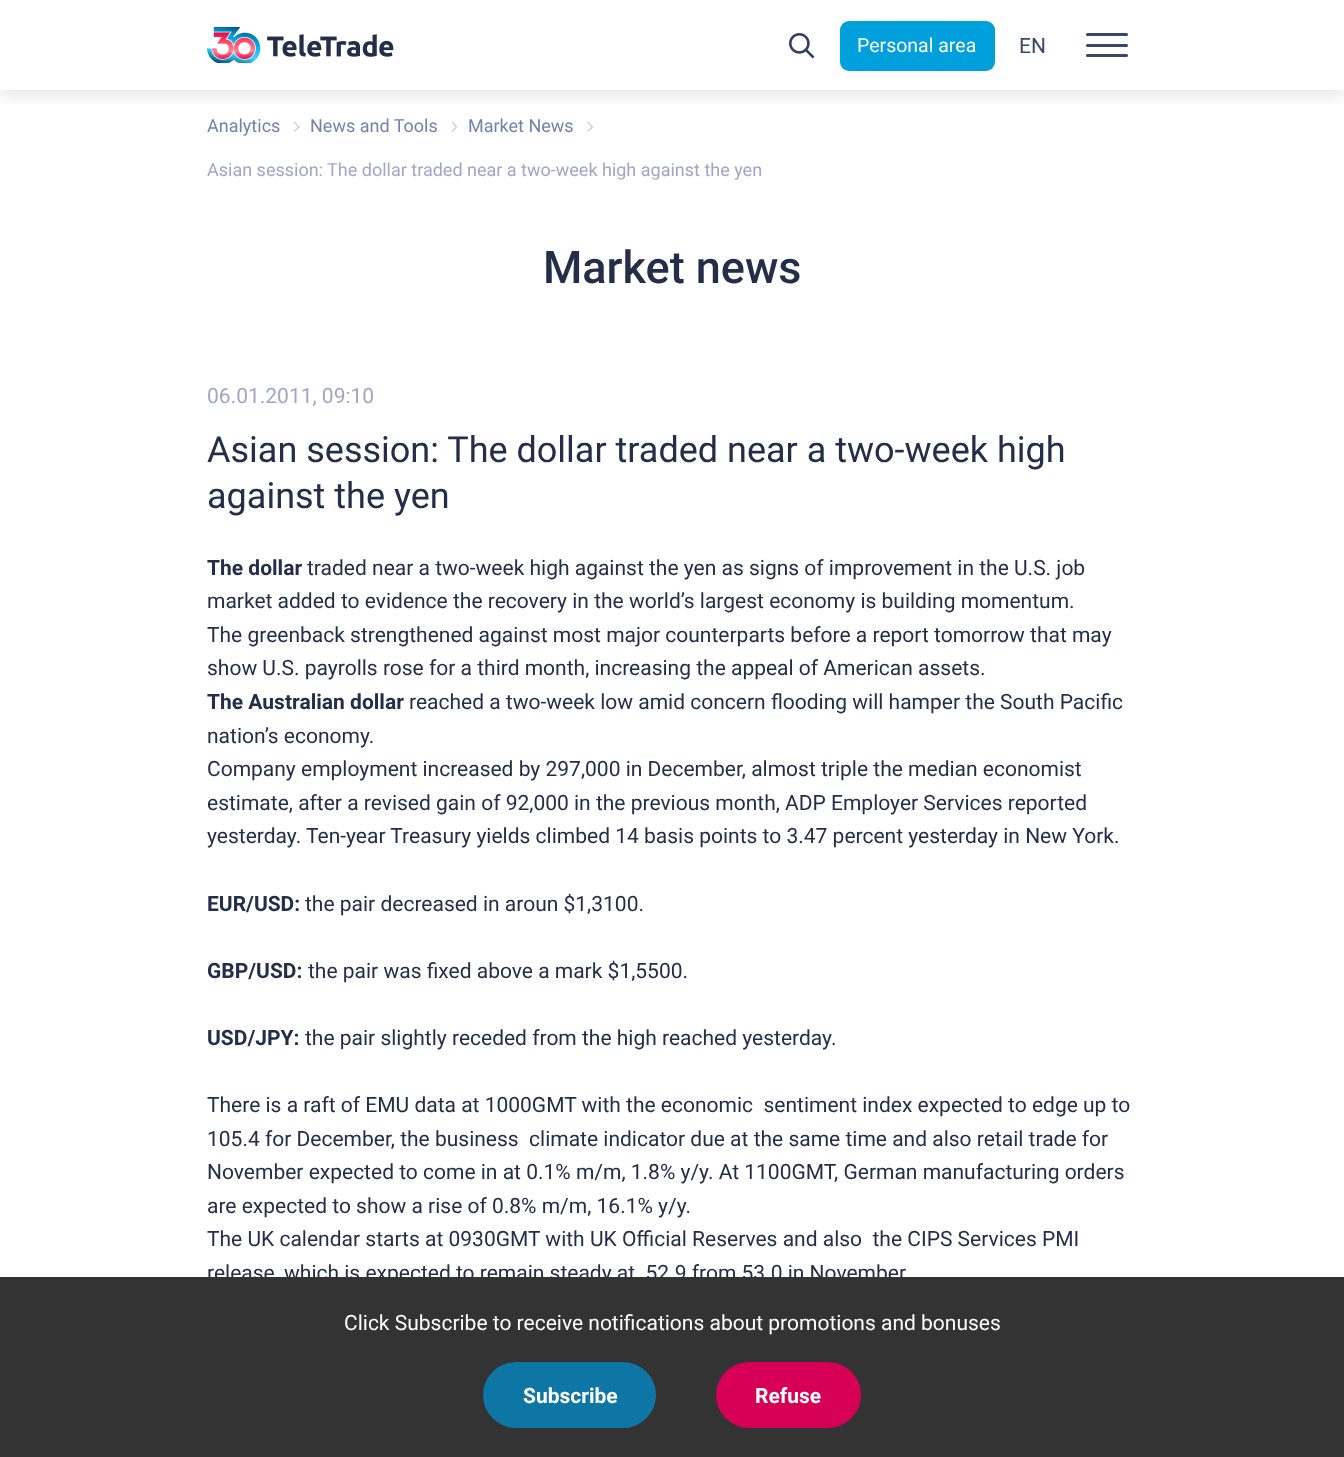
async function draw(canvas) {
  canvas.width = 1344;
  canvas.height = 1457;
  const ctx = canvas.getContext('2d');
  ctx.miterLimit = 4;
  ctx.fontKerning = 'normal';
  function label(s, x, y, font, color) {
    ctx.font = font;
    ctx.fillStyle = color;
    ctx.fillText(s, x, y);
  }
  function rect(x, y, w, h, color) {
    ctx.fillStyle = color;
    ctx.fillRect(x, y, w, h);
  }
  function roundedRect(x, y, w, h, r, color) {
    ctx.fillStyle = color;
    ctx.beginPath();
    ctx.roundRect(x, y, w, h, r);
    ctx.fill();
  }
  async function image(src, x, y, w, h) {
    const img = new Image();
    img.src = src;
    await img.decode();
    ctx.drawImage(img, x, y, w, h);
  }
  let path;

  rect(0, 0, 1344, 1457, '#fff');
  ctx.fillStyle = '#cfd2e1';
  path = new Path2D('M293.5 122.5L294.5 121.5L300 127L299 128Z');
  ctx.fill(path);
  path = new Path2D('M451.5 122.5L452.5 121.5L457.5 127L456.5 128Z');
  ctx.fill(path);
  path = new Path2D('M587 122.5L588 121.5L593.5 127L592 128Z');
  ctx.fill(path);
  ctx.save();
  ctx.beginPath();
  ctx.rect(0, 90, 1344, 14);
  ctx.clip();
  ctx.fillStyle = '#242e491a';
  ctx.filter = 'blur(7.5px)';
  ctx.beginPath();
  ctx.rect(0, 8, 1344, 90);
  ctx.fill();
  ctx.filter = 'none';
  ctx.restore();
  await image('assets/img1.png', 207, 27, 187, 36);
  await image('assets/img2.png', 789, 33, 26, 26);
  roundedRect(840, 21, 155, 50, 9, '#00a0dc');
  label('Personal area', 857, 52, '19.5px Roboto', '#fff');
  label('EN', 1019, 53, '21px Roboto', '#3a4769');
  roundedRect(1086, 44, 42, 3, 1.5, '#3a4769');
  roundedRect(1086, 33, 42, 3, 1.5, '#3a4769');
  roundedRect(1086, 54, 42, 3, 1.5, '#3a4769');
  label('Analytics', 207, 132, '18px Roboto', '#7481aa');
  ctx.fillStyle = '#cfd2e1';
  path = new Path2D('M293.5 131L299 126L300 127L294.5 132Z');
  ctx.fill(path);
  label('News and Tools', 310, 132, '18px Roboto', '#7481aa');
  ctx.fillStyle = '#cfd2e1';
  path = new Path2D('M451.5 131L456.5 126L457.5 127L452.5 132Z');
  ctx.fill(path);
  label('Market News', 468, 132, '18px Roboto', '#7481aa');
  ctx.fillStyle = '#cfd2e1';
  path = new Path2D('M587 131L592 126L593.5 127L588 132Z');
  ctx.fill(path);
  label('Asian session: The dollar traded near a two-week high against the yen', 207, 176, '18px Roboto', '#a0a6c3');
  label('Market news', 543, 283, '500 45px Roboto', '#242e49');
  label('06.01.2011, 09:10', 207, 403, '21px Roboto', '#a0a6c3');
  label('Asian session: The dollar traded near a two-week high', 207, 462, '36px Roboto', '#242e49');
  label('against the yen', 207, 508, '36px Roboto', '#242e49');
  label('The dollar', 207, 575, 'bold 21px Roboto', '#242e49');
  label('traded near a two-week high against the yen as signs of improvement in the U.S. job', 307, 575, '21px Roboto', '#242e49');
  label('market added to evidence the recovery in the world’s largest economy is building momentum.', 207, 608, '21px Roboto', '#242e49');
  label('The greenback strengthened against most major counterparts before a report tomorrow that may', 207, 642, '21px Roboto', '#242e49');
  label('show U.S. payrolls rose for a third month, increasing the appeal of American assets.', 207, 675, '21px Roboto', '#242e49');
  label('The Australian dollar', 207, 709, 'bold 21px Roboto', '#242e49');
  label('reached a two-week low amid concern flooding will hamper the South Pacific', 409, 709, '21px Roboto', '#242e49');
  label('nation’s economy.', 207, 743, '21px Roboto', '#242e49');
  label('Company employment increased by 297,000 in December, almost triple the median economist', 207, 776, '21px Roboto', '#242e49');
  label('estimate, after a revised gain of 92,000 in the previous month, ADP Employer Services reported', 207, 810, '21px Roboto', '#242e49');
  label('yesterday. Ten-year Treasury yields climbed 14 basis points to 3.47 percent yesterday in New York.', 207, 843, '21px Roboto', '#242e49');
  label('EUR/USD:', 207, 911, 'bold 21px Roboto', '#242e49');
  label('the pair decreased in aroun $1,3100.', 305, 911, '21px Roboto', '#242e49');
  label('GBP/USD:', 207, 978, 'bold 21px Roboto', '#242e49');
  label('the pair was fixed above a mark $1,5500.', 308, 978, '21px Roboto', '#242e49');
  label('USD/JPY:', 207, 1045, 'bold 21px Roboto', '#242e49');
  label('the pair slightly receded from the high reached yesterday.', 305, 1045, '21px Roboto', '#242e49');
  label('There is a raft of EMU data at 1000GMT with the economic  sentiment index expected to edge up to', 207, 1112, '21px Roboto', '#242e49');
  label('105.4 for December, the business  climate indicator due at the same time and also retail trade for', 207, 1146, '21px Roboto', '#242e49');
  label('November expected to come in at 0.1% m/m, 1.8% y/y. At 1100GMT, German manufacturing orders', 207, 1179, '21px Roboto', '#242e49');
  label('are expected to show a rise of 0.8% m/m, 16.1% y/y.', 207, 1213, '21px Roboto', '#242e49');
  label('The UK calendar starts at 0930GMT with UK Official Reserves and also  the CIPS Services PMI', 207, 1246, '21px Roboto', '#242e49');
  label('release, which is expected to remain steady at  52.9 from 53.0 in November.', 207, 1280, '21px Roboto', '#242e49');
  rect(0, 1277, 1344, 180, '#333');
  label('Click Subscribe to receive notifications about promotions and bonuses', 344, 1330, '21px Roboto', '#fff');
  roundedRect(483, 1362, 173, 66, 33, '#0d76a4');
  label('Subscribe', 523, 1403, 'bold 21px Roboto', '#fff');
  roundedRect(716, 1362, 145, 66, 33, '#d60057');
  label('Refuse', 755, 1403, 'bold 21px Roboto', '#fff');
}

draw(document.querySelector('canvas'));
